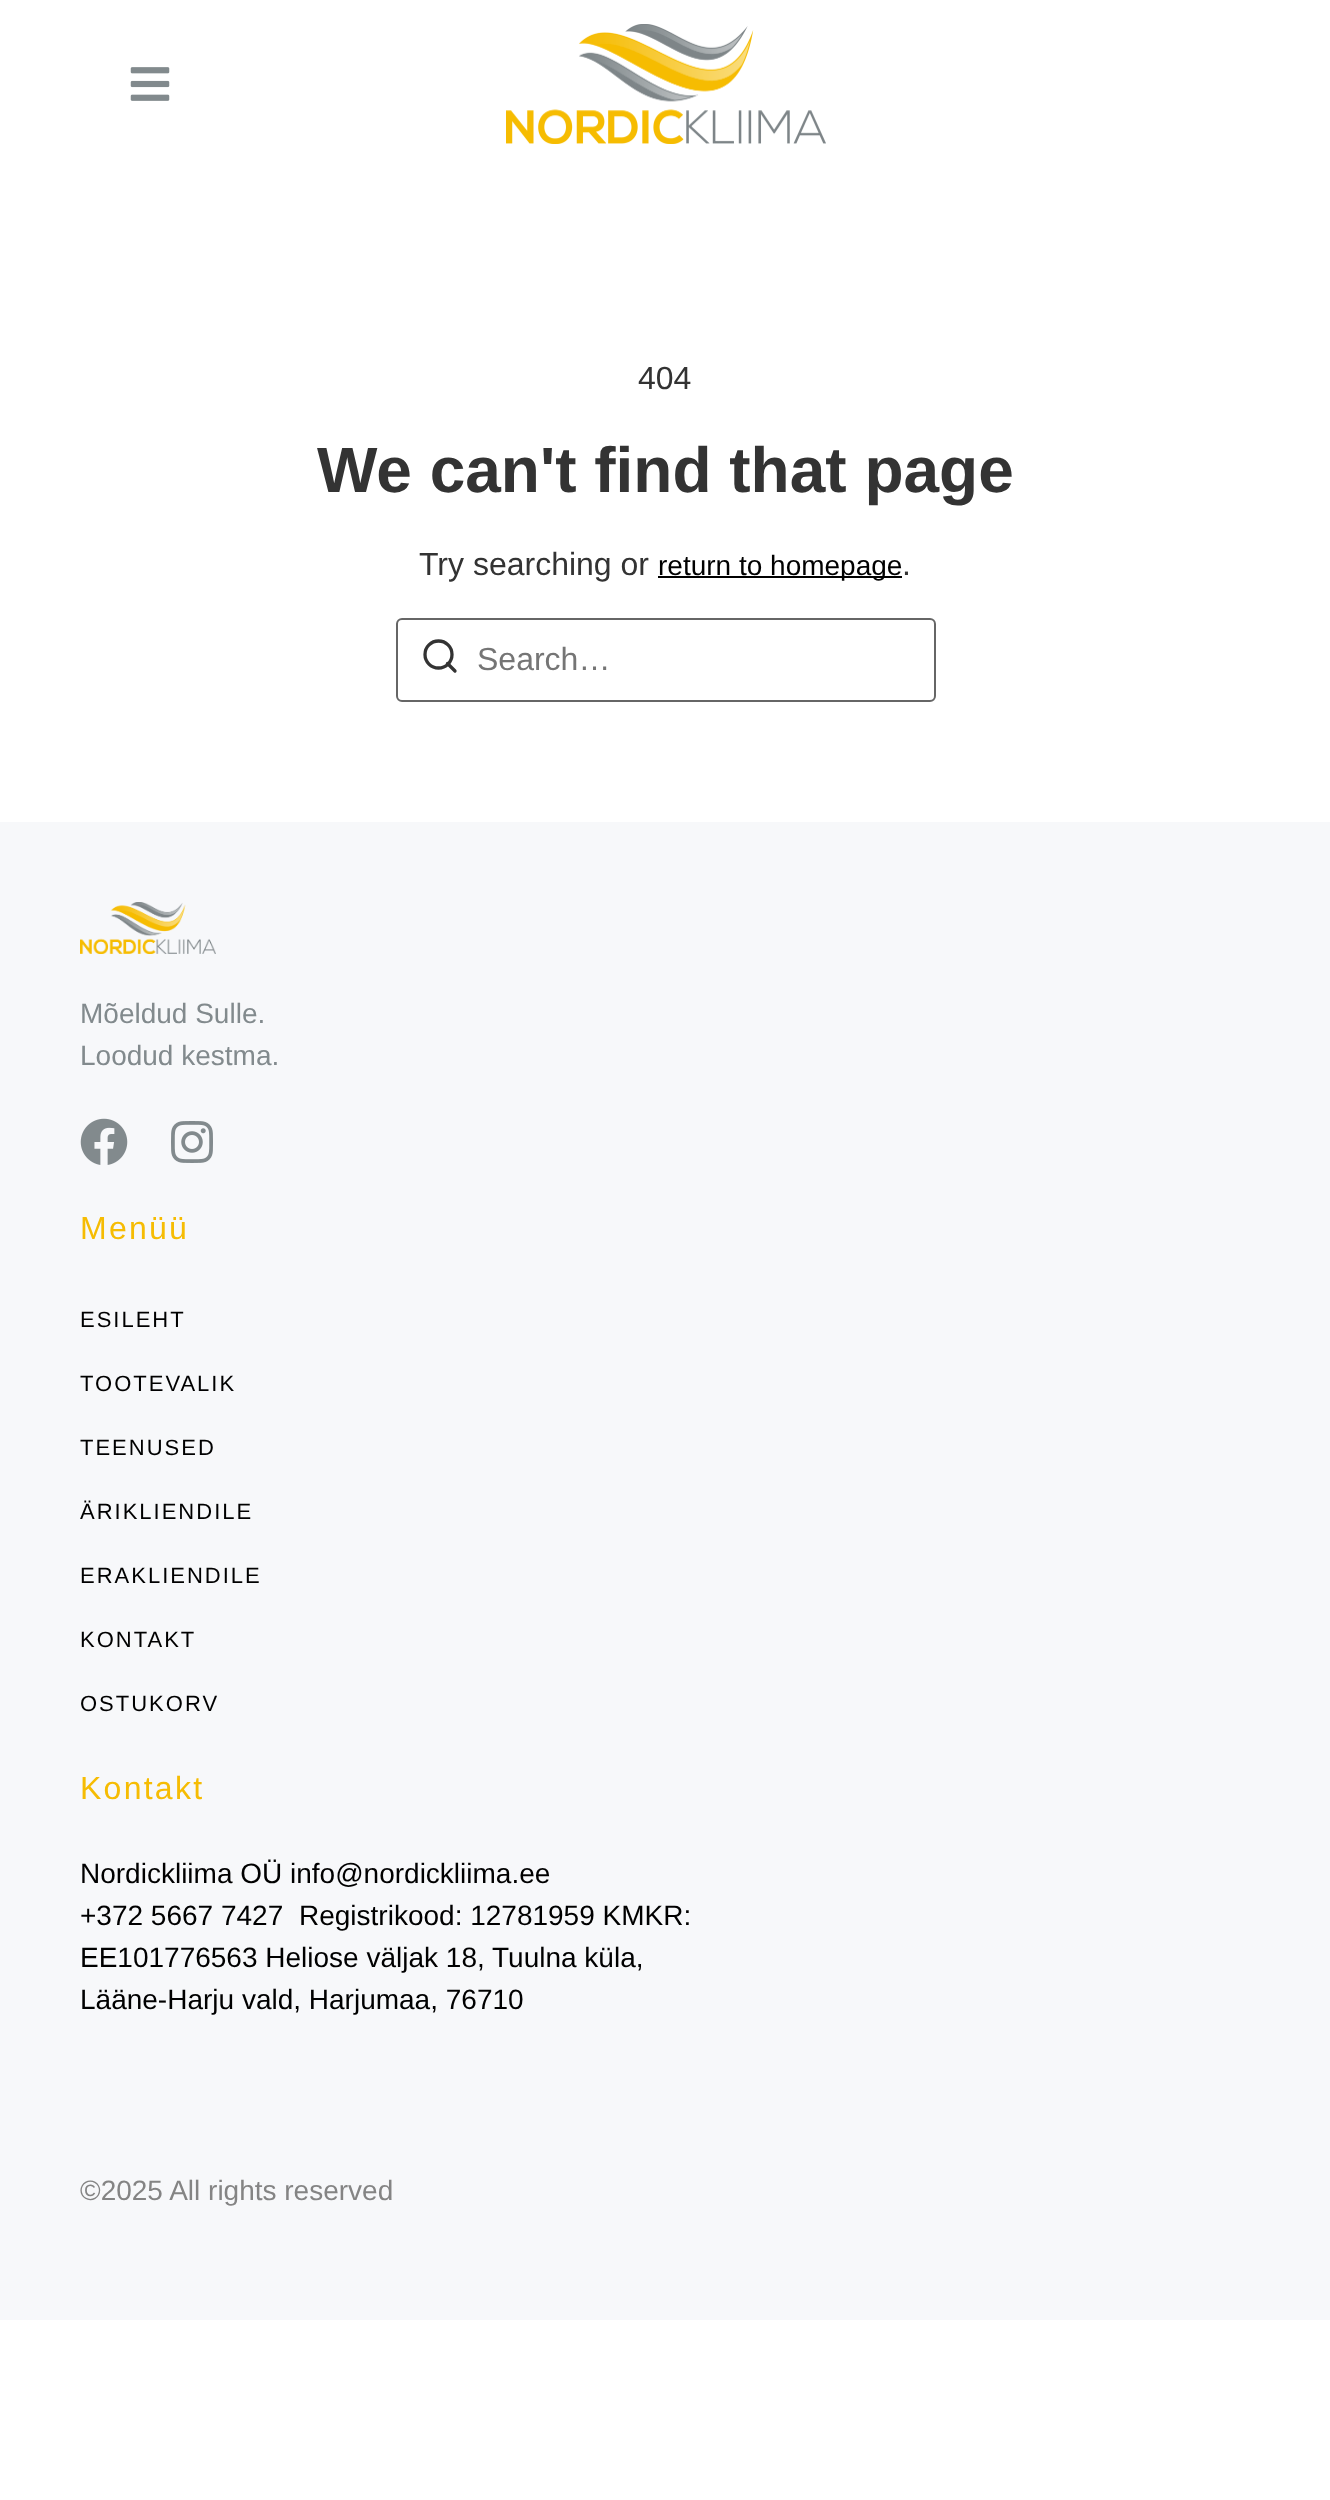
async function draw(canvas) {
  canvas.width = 1330;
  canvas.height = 2500;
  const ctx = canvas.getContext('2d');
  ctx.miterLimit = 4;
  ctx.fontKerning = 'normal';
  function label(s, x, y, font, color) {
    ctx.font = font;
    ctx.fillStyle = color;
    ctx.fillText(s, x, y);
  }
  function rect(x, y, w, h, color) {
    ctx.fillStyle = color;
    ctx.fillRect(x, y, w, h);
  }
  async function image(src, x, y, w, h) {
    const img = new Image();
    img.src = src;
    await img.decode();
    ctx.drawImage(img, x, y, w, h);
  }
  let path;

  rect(0, 0, 1330, 2500, '#fff');
  await image('assets/img1.png', 130, 67, 40, 34);
  await image('assets/img2.png', 506, 24, 320, 120);
  label('404', 638, 389, '32px Liberation Sans', '#333');
  label('We can\'t find that page', 317, 492, 'bold 64px Liberation Sans', '#333');
  label('Try searching or', 419, 575, '32px Liberation Sans', '#333');
  rect(658, 576, 244, 2, '#000');
  label('return to homepage', 658, 575, '28px Liberation Sans', '#000');
  label('.', 902, 575, '32px Liberation Sans', '#333');
  ctx.beginPath();
  ctx.roundRect(397, 619, 538, 82, 5);
  ctx.strokeStyle = '#666';
  ctx.lineWidth = 2;
  ctx.stroke();
  ctx.beginPath();
  ctx.arc(438.5, 654.5, 13.5, 0, 2 * Math.PI);
  ctx.strokeStyle = '#333';
  ctx.lineWidth = 3.3;
  ctx.stroke();
  path = new Path2D('M455 671L447.5 663.5');
  ctx.lineCap = 'round';
  ctx.lineJoin = 'round';
  ctx.stroke(path);
  label('Search…', 477, 670, '32px Liberation Sans', '#757575');
  rect(0, 822, 1330, 1498, '#f7f8fa');
  await image('assets/img3.png', 80, 902, 136, 52);
  label('Mõeldud Sulle.', 80, 1023, '28px Liberation Sans', '#828a8d');
  label('Loodud kestma.', 80, 1065, '28px Liberation Sans', '#828a8d');
  await image('assets/img4.png', 80, 1118, 48, 47);
  await image('assets/img5.png', 171, 1121, 42, 42);
  ctx.letterSpacing = '2.25px';
  label('Menüü', 80, 1239, '32px Liberation Sans', '#f6bc03');
  ctx.letterSpacing = '2px';
  label('ESILEHT', 80, 1327, '22px Liberation Sans', '#000');
  label('TOOTEVALIK', 80, 1391, '22px Liberation Sans', '#000');
  label('TEENUSED', 80, 1455, '22px Liberation Sans', '#000');
  label('ÄRIKLIENDILE', 80, 1519, '22px Liberation Sans', '#000');
  label('ERAKLIENDILE', 80, 1583, '22px Liberation Sans', '#000');
  label('KONTAKT', 80, 1647, '22px Liberation Sans', '#000');
  label('OSTUKORV', 80, 1711, '22px Liberation Sans', '#000');
  ctx.letterSpacing = '2.25px';
  label('Kontakt', 80, 1799, '32px Liberation Sans', '#f6bc03');
  ctx.letterSpacing = '0px';
  label('Nordickliima OÜ info@nordickliima.ee', 80, 1883, '28px Liberation Sans', '#000');
  label('+372 5667 7427', 80, 1925, '28px Liberation Sans', '#000');
  label('Registrikood: 12781959 KMKR:', 299, 1925, '28px Liberation Sans', '#000');
  label('EE101776563 Heliose väljak 18, Tuulna küla,', 80, 1967, '28px Liberation Sans', '#000');
  label('Lääne-Harju vald, Harjumaa, 76710', 80, 2009, '28px Liberation Sans', '#000');
  label('©2025 All rights reserved', 80, 2200, '28px Liberation Sans', '#848484');
}

draw(document.querySelector('canvas'));
